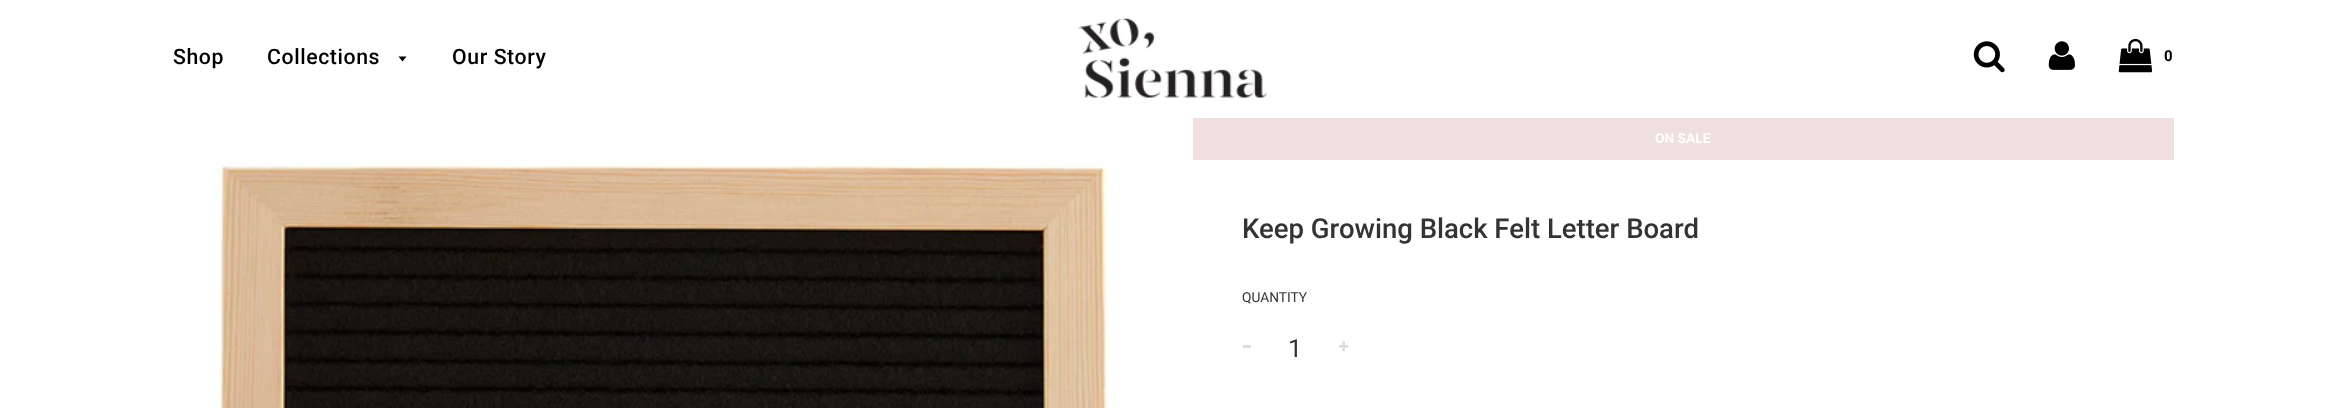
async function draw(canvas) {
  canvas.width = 2346;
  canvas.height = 408;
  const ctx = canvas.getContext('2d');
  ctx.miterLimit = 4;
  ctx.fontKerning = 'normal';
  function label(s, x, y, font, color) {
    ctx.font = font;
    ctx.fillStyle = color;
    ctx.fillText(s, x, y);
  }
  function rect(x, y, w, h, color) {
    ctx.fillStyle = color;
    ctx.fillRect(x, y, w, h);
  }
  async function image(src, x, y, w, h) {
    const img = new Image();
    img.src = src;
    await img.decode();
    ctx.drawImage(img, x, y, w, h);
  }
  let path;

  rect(0, 0, 2346, 408, '#fff');
  ctx.letterSpacing = '0.6px';
  label('Shop', 173, 64, '500 21.25px Roboto', '#000');
  label('Collections', 267, 64, '500 21.25px Roboto', '#000');
  path = new Path2D('M398.5 56.5L402.5 61.5L406.5 56.5Z');
  ctx.fill(path);
  label('Our Story', 452, 64, '500 21.25px Roboto', '#000');
  await image('assets/img1.png', 1078, 18, 189, 80);
  await image('assets/img2.png', 1973, 41, 32, 32);
  await image('assets/img3.png', 2048, 41, 27, 29);
  await image('assets/img4.png', 2118, 38, 35, 35);
  ctx.letterSpacing = '0px';
  label('0', 2164, 61, 'bold 15px Roboto', '#000');
  await image('assets/img5.png', 213, 157, 895, 251);
  rect(1193, 118, 981, 42, '#f0dfdf');
  label('ON SALE', 1655, 143, 'bold 13.75px Roboto', '#fff');
  label('Keep Growing Black Felt Letter Board', 1242, 238, '500 27.5px Roboto', '#333');
  label('QUANTITY', 1242, 302, '13.75px Roboto', '#333');
  rect(1243, 345, 8, 3, '#dedede');
  label('1', 1288, 357, '25px Roboto', '#333');
  await image('assets/img6.png', 1339, 341, 10, 11);
}

draw(document.querySelector('canvas'));
